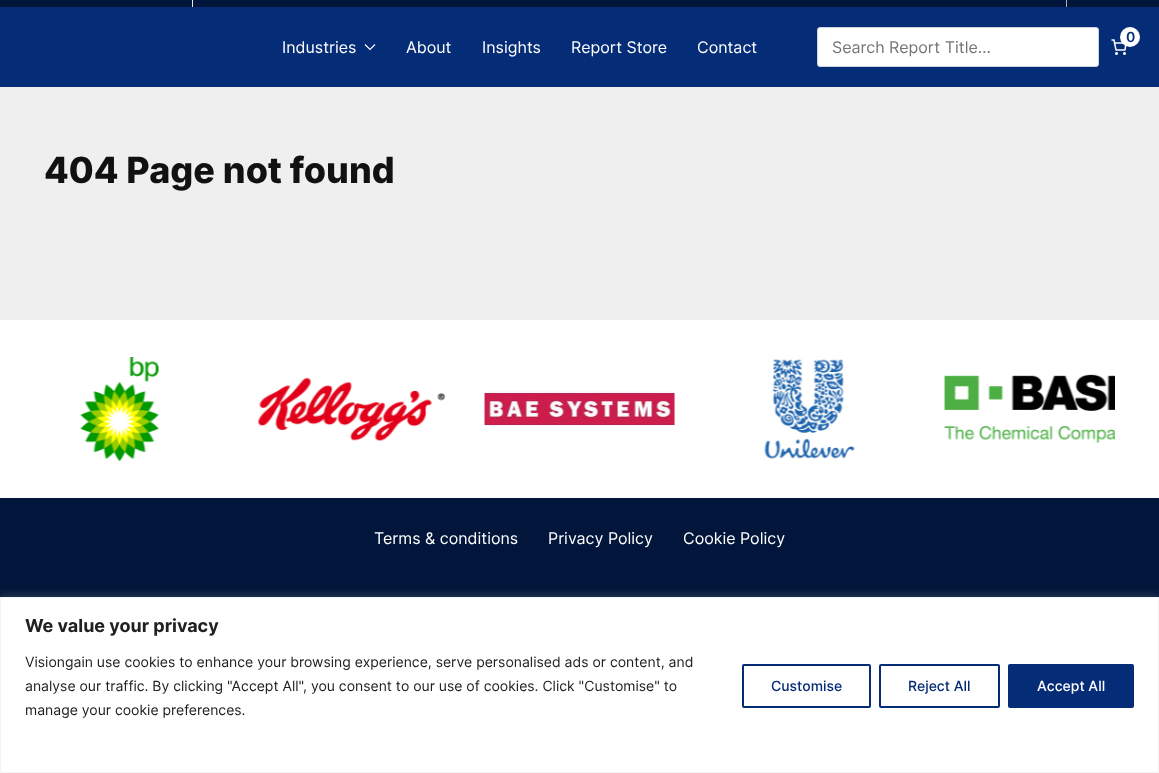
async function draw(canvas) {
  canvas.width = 1159;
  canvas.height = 773;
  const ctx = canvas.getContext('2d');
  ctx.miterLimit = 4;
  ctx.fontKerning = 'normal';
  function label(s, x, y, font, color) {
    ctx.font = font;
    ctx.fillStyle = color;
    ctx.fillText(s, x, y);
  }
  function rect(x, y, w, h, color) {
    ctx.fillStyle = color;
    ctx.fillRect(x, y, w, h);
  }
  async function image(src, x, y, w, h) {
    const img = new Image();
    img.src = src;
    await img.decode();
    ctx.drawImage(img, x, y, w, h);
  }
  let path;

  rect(0, 0, 1159, 773, '#fff');
  rect(0, 0, 1159, 7, '#02163b');
  rect(192, 0, 1, 7, '#ededed');
  rect(1066, 0, 1, 7, '#aaa');
  rect(0, 7, 1159, 80, '#052c76');
  label('Industries', 282, 53, '16px Inter', '#fff');
  path = new Path2D('M365 44.5L370 49.5L375 44.5');
  ctx.strokeStyle = '#fff';
  ctx.lineWidth = 1.1;
  ctx.stroke(path);
  label('About', 406, 53, '16px Inter', '#fff');
  label('Insights', 482, 53, '16px Inter', '#fff');
  label('Report Store', 571, 53, '16px Inter', '#fff');
  label('Contact', 697, 53, '16px Inter', '#fff');
  await image('assets/img1.png', 1111, 39, 16, 16);
  ctx.beginPath();
  ctx.arc(1130, 37, 10, 0, 2 * Math.PI);
  ctx.fill();
  label('0', 1126, 42, '600 14px Inter', '#052c76');
  ctx.fillStyle = '#fff';
  ctx.beginPath();
  ctx.roundRect(817.5, 27.5, 281, 39, 2.5);
  ctx.fill();
  ctx.strokeStyle = '#ced4da';
  ctx.lineWidth = 1;
  ctx.stroke();
  label('Search Report Title…', 832, 53, '16px Inter', '#757575');
  rect(0, 87, 1159, 233, '#efefef');
  label('404 Page not found', 44, 183, '800 36px Inter', '#111');
  await image('assets/img2.png', 80, 357, 79, 104);
  await image('assets/img3.png', 257, 377, 188, 64);
  await image('assets/img4.png', 484, 391, 191, 35);
  await image('assets/img5.png', 764, 359, 91, 100);
  await image('assets/img6.png', 944, 374, 171, 70);
  rect(0, 498, 1159, 99, '#02163b');
  label('Terms & conditions', 374, 544, '16px Inter', '#fff');
  label('Privacy Policy', 548, 544, '16px Inter', '#fff');
  label('Cookie Policy', 683, 544, '16px Inter', '#fff');
  ctx.fillStyle = '#acabab4d';
  ctx.filter = 'blur(5px)';
  ctx.beginPath();
  ctx.rect(0, 596, 1159, 176);
  ctx.fill();
  ctx.filter = 'none';
  ctx.fillStyle = '#fff';
  ctx.beginPath();
  ctx.rect(0.5, 597.5, 1158, 175);
  ctx.fill();
  ctx.strokeStyle = '#f4f4f4';
  ctx.stroke();
  label('We value your privacy', 25, 632, 'bold 18px Inter', '#212121');
  label('Visiongain use cookies to enhance your browsing experience, serve personalised ads or content, and', 25, 667, '14px Inter', '#212121');
  label('analyse our traffic. By clicking "Accept All", you consent to our use of cookies. Click "Customise" to', 25, 691, '14px Inter', '#212121');
  label('manage your cookie preferences.', 25, 715, '14px Inter', '#212121');
  ctx.beginPath();
  ctx.roundRect(743, 665, 127, 42, 1);
  ctx.strokeStyle = '#052c76';
  ctx.lineWidth = 2;
  ctx.stroke();
  label('Customise', 771, 691, '500 14px Inter', '#052c76');
  ctx.beginPath();
  ctx.roundRect(880, 665, 119, 42, 1);
  ctx.stroke();
  label('Reject All', 908, 691, '500 14px Inter', '#052c76');
  ctx.beginPath();
  ctx.roundRect(1009, 665, 124, 42, 1);
  ctx.fill();
  ctx.stroke();
  label('Accept All', 1037, 691, '500 14px Inter', '#fff');
}

draw(document.querySelector('canvas'));
